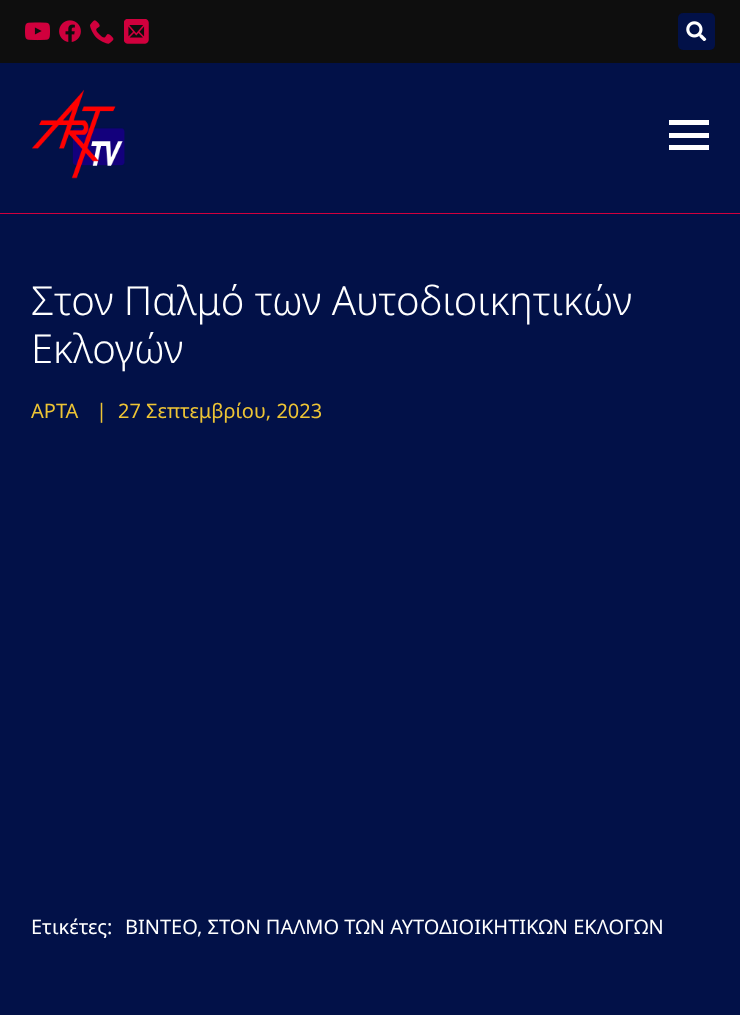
async function draw(canvas) {
  canvas.width = 740;
  canvas.height = 1015;
  const ctx = canvas.getContext('2d');
  ctx.miterLimit = 4;
  ctx.fontKerning = 'normal';
  function label(s, x, y, font, color) {
    ctx.font = font;
    ctx.fillStyle = color;
    ctx.fillText(s, x, y);
  }
  function rect(x, y, w, h, color) {
    ctx.fillStyle = color;
    ctx.fillRect(x, y, w, h);
  }
  function roundedRect(x, y, w, h, r, color) {
    ctx.fillStyle = color;
    ctx.beginPath();
    ctx.roundRect(x, y, w, h, r);
    ctx.fill();
  }
  async function image(src, x, y, w, h) {
    const img = new Image();
    img.src = src;
    await img.decode();
    ctx.drawImage(img, x, y, w, h);
  }

  rect(0, 0, 740, 1015, '#021148');
  rect(0, 0, 740, 63, '#0e0e0e');
  await image('assets/img1.png', 25, 22, 25, 19);
  await image('assets/img2.png', 59, 20, 22, 22);
  await image('assets/img3.png', 90, 20, 24, 24);
  await image('assets/img4.png', 124, 19, 25, 25);
  roundedRect(678, 13, 37, 37, 5, '#021148');
  await image('assets/img5.png', 686, 21, 21, 20);
  rect(0, 213, 740, 1, '#d0003d');
  await image('assets/img6.png', 32, 89, 93, 90);
  rect(669, 133, 40, 5, '#fff');
  rect(669, 120, 40, 5, '#fff');
  rect(669, 145, 40, 5, '#fff');
  label('Στον Παλμό των Αυτοδιοικητικών', 31, 315, '300 40px Noto Sans', '#fff');
  label('Εκλογών', 31, 363, '300 40px Noto Sans', '#fff');
  label('ΑΡΤΑ', 31, 418, '20px Noto Sans', '#edc435');
  label('|', 96, 418, '20px Noto Sans', '#edc435');
  label('27 Σεπτεμβρίου, 2023', 118, 418, '20px Noto Sans', '#edc435');
  label('Ετικέτες:', 31, 934, '20px Noto Sans', '#fff');
  label('ΒΙΝΤΕΟ, ΣΤΟΝ ΠΑΛΜΟ ΤΩΝ ΑΥΤΟΔΙΟΙΚΗΤΙΚΩΝ ΕΚΛΟΓΩΝ', 125, 934, '20px Noto Sans', '#fff');
}

draw(document.querySelector('canvas'));
